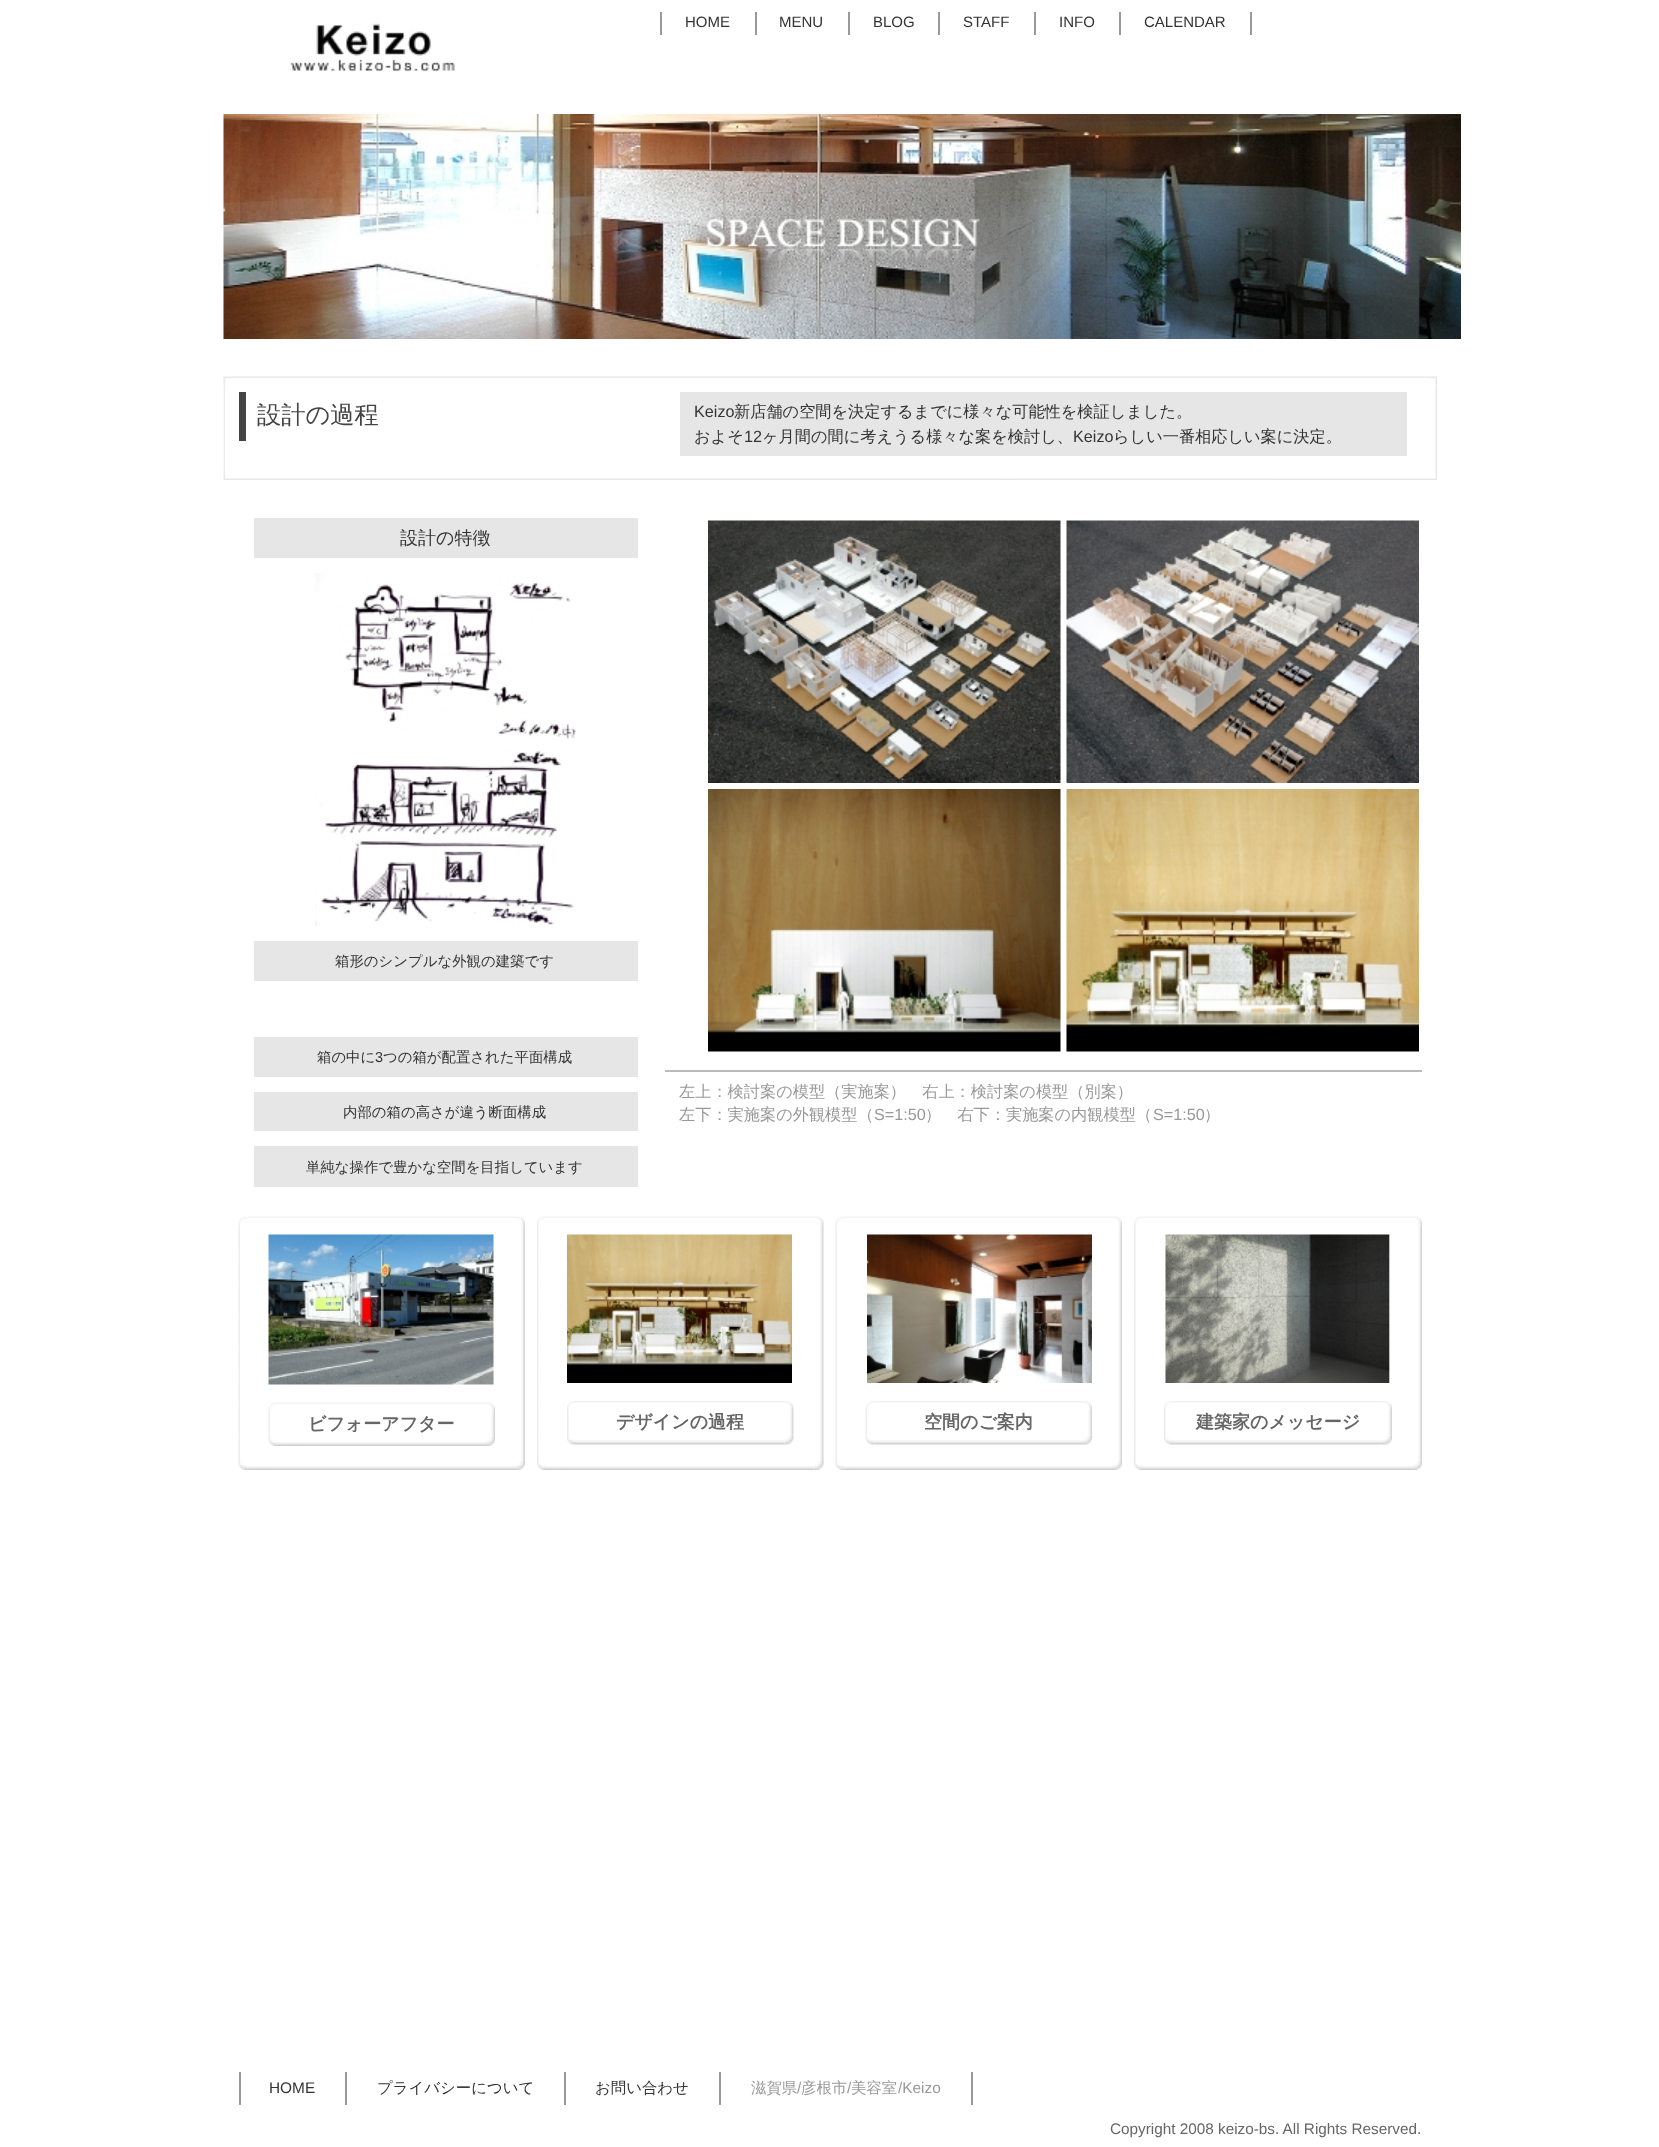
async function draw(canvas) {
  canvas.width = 1659;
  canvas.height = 2147;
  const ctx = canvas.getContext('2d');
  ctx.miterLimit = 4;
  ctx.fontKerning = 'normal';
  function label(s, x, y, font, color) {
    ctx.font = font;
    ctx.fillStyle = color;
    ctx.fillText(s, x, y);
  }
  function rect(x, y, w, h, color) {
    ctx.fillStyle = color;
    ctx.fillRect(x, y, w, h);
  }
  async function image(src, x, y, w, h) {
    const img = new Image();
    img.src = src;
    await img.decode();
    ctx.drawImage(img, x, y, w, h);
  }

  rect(0, 0, 1659, 2147, '#fff');
  await image('assets/img1.png', 290, 23, 165, 49);
  rect(755, 12, 2, 23, '#999');
  rect(660, 12, 2, 23, '#999');
  label('HOME', 685, 27, '15px Liberation Sans', '#333');
  rect(848, 12, 2, 23, '#999');
  label('MENU', 779, 27, '15px Liberation Sans', '#333');
  rect(938, 12, 2, 23, '#999');
  label('BLOG', 873, 27, '15px Liberation Sans', '#333');
  rect(1034, 12, 2, 23, '#999');
  label('STAFF', 963, 27, '15px Liberation Sans', '#333');
  rect(1119, 12, 2, 23, '#999');
  label('INFO', 1059, 27, '15px Liberation Sans', '#333');
  rect(1250, 12, 2, 23, '#999');
  label('CALENDAR', 1144, 27, '15px Liberation Sans', '#333');
  await image('assets/img2.png', 223, 114, 1238, 225);
  await image('assets/img4.png', 232, 376, 1196, 2);
  await image('assets/img3.png', 223, 376, 10, 10);
  await image('assets/img5.png', 1428, 376, 9, 10);
  await image('assets/img6.png', 223, 386, 2, 85);
  rect(239, 392, 7, 49, '#444');
  label('設計の過程', 257, 423, '500 24.25px WenQuanYi Zen Hei', '#444');
  rect(680, 392, 727, 64, '#e6e6e6');
  label('Keizo', 694, 417, '16.2px Liberation Sans', '#333');
  label('新店舗の空間を決定するまでに様々な可能性を検証しました。', 734, 417, '500 16.2px WenQuanYi Zen Hei', '#333');
  label('およそ', 694, 442, '500 16.2px WenQuanYi Zen Hei', '#333');
  label('12', 744, 442, '16.2px Liberation Sans', '#333');
  label('ヶ月間の間に考えうる様々な案を検討し、', 762, 442, '500 16.2px WenQuanYi Zen Hei', '#333');
  label('Keizo', 1073, 442, '16.2px Liberation Sans', '#333');
  label('らしい一番相応しい案に決定。', 1113, 442, '500 16.2px WenQuanYi Zen Hei', '#333');
  await image('assets/img7.png', 1435, 386, 2, 85);
  await image('assets/img9.png', 232, 478, 1196, 2);
  await image('assets/img8.png', 223, 471, 10, 9);
  await image('assets/img10.png', 1428, 471, 9, 9);
  rect(254, 518, 384, 40, '#e6e6e6');
  label('設計の特徴', 400, 544, '500 18px WenQuanYi Zen Hei', '#333');
  await image('assets/img11.png', 315, 573, 261, 353);
  rect(254, 941, 384, 40, '#e6e6e6');
  label('箱形のシンプルな外観の建築です', 335, 966, '500 14.4px WenQuanYi Zen Hei', '#333');
  rect(254, 1037, 384, 40, '#e6e6e6');
  label('箱の中に', 317, 1062, '500 14.4px WenQuanYi Zen Hei', '#333');
  label('3', 375, 1062, '14.4px Liberation Sans', '#333');
  label('つの箱が配置された平面構成', 383, 1062, '500 14.4px WenQuanYi Zen Hei', '#333');
  rect(254, 1092, 384, 39, '#e6e6e6');
  label('内部の箱の高さが違う断面構成', 343, 1117, '500 14.4px WenQuanYi Zen Hei', '#333');
  rect(254, 1146, 384, 41, '#e6e6e6');
  label('単純な操作で豊かな空間を目指しています', 306, 1172, '500 14.4px WenQuanYi Zen Hei', '#333');
  await image('assets/img12.png', 708, 520, 353, 263);
  await image('assets/img13.png', 1066, 520, 353, 263);
  await image('assets/img14.png', 708, 789, 353, 263);
  await image('assets/img15.png', 1066, 789, 353, 263);
  rect(665, 1070, 757, 2, '#bbb');
  label('左上：検討案の模型（実施案）　右上：検討案の模型（別案）', 679, 1097, '500 16.2px WenQuanYi Zen Hei', '#999');
  label('左下：実施案の外観模型（', 679, 1120, '500 16.2px WenQuanYi Zen Hei', '#999');
  label('S=1:50', 874, 1120, '16.2px Liberation Sans', '#999');
  label('）　右下：実施案の内観模型（', 925, 1120, '500 16.2px WenQuanYi Zen Hei', '#999');
  label('S=1:50', 1153, 1120, '16.2px Liberation Sans', '#999');
  label('）', 1204, 1120, '500 16.2px WenQuanYi Zen Hei', '#999');
  await image('assets/img16.png', 238, 1216, 10, 10);
  await image('assets/img17.png', 248, 1216, 268, 2);
  await image('assets/img18.png', 516, 1216, 9, 10);
  await image('assets/img19.png', 537, 1216, 9, 10);
  await image('assets/img20.png', 546, 1216, 269, 2);
  await image('assets/img21.png', 815, 1216, 9, 10);
  await image('assets/img16.png', 835, 1216, 10, 10);
  await image('assets/img17.png', 845, 1216, 268, 2);
  await image('assets/img22.png', 1113, 1216, 9, 10);
  await image('assets/img23.png', 1134, 1216, 9, 10);
  await image('assets/img24.png', 1143, 1216, 270, 2);
  await image('assets/img18.png', 1413, 1216, 9, 10);
  await image('assets/img25.png', 238, 1225, 2, 236);
  await image('assets/img26.png', 268, 1234, 226, 151);
  await image('assets/img27.png', 268, 1402, 9, 10);
  await image('assets/img28.png', 277, 1402, 209, 2);
  await image('assets/img22.png', 486, 1402, 9, 10);
  await image('assets/img29.png', 268, 1412, 2, 25);
  label('ビフォーアフター', 308, 1430, 'bold 18px WenQuanYi Zen Hei', '#666');
  await image('assets/img30.png', 491, 1411, 4, 26);
  await image('assets/img32.png', 277, 1442, 209, 4);
  await image('assets/img31.png', 268, 1437, 10, 9);
  await image('assets/img33.png', 486, 1437, 9, 9);
  await image('assets/img34.png', 521, 1225, 4, 236);
  await image('assets/img35.png', 537, 1225, 2, 236);
  await image('assets/img36.png', 567, 1234, 225, 149);
  await image('assets/img37.png', 567, 1401, 9, 9);
  await image('assets/img38.png', 576, 1401, 209, 2);
  await image('assets/img39.png', 785, 1401, 9, 9);
  await image('assets/img42.png', 567, 1435, 9, 10);
  await image('assets/img40.png', 567, 1410, 2, 26);
  label('デザインの過程', 616, 1428, 'bold 18px WenQuanYi Zen Hei', '#666');
  await image('assets/img43.png', 576, 1440, 209, 5);
  await image('assets/img44.png', 784, 1435, 10, 10);
  await image('assets/img41.png', 790, 1410, 4, 26);
  await image('assets/img45.png', 820, 1225, 4, 236);
  await image('assets/img25.png', 835, 1225, 2, 236);
  await image('assets/img46.png', 867, 1234, 225, 149);
  await image('assets/img47.png', 865, 1401, 9, 9);
  await image('assets/img48.png', 874, 1401, 209, 2);
  await image('assets/img49.png', 1083, 1401, 9, 9);
  await image('assets/img50.png', 865, 1410, 2, 25);
  label('空間のご案内', 924, 1428, 'bold 18px WenQuanYi Zen Hei', '#666');
  await image('assets/img54.png', 1083, 1435, 9, 10);
  await image('assets/img51.png', 1088, 1410, 4, 26);
  await image('assets/img53.png', 874, 1440, 209, 5);
  await image('assets/img52.png', 865, 1435, 10, 10);
  await image('assets/img55.png', 1118, 1225, 4, 236);
  await image('assets/img56.png', 1134, 1225, 2, 236);
  await image('assets/img57.png', 1165, 1234, 225, 149);
  await image('assets/img37.png', 1164, 1401, 9, 9);
  await image('assets/img58.png', 1173, 1401, 210, 2);
  await image('assets/img59.png', 1383, 1401, 9, 9);
  await image('assets/img42.png', 1164, 1435, 9, 10);
  await image('assets/img40.png', 1164, 1410, 2, 26);
  label('建築家のメッセージ', 1196, 1428, 'bold 18px WenQuanYi Zen Hei', '#666');
  await image('assets/img62.png', 1383, 1435, 9, 10);
  await image('assets/img60.png', 1388, 1410, 4, 26);
  await image('assets/img61.png', 1173, 1440, 210, 5);
  await image('assets/img34.png', 1418, 1225, 4, 236);
  await image('assets/img63.png', 238, 1461, 10, 9);
  await image('assets/img64.png', 247, 1466, 269, 4);
  await image('assets/img65.png', 516, 1461, 9, 9);
  await image('assets/img66.png', 537, 1461, 9, 9);
  await image('assets/img67.png', 546, 1466, 269, 4);
  await image('assets/img68.png', 814, 1461, 10, 9);
  await image('assets/img63.png', 835, 1461, 10, 9);
  await image('assets/img69.png', 844, 1466, 269, 4);
  await image('assets/img33.png', 1113, 1461, 9, 9);
  await image('assets/img70.png', 1134, 1461, 9, 9);
  await image('assets/img71.png', 1143, 1466, 270, 4);
  await image('assets/img65.png', 1413, 1461, 9, 9);
  rect(345, 2072, 2, 33, '#999');
  rect(239, 2072, 2, 33, '#999');
  label('HOME', 269, 2093, '15.4px Liberation Sans', '#333');
  rect(564, 2072, 2, 33, '#999');
  label('プライバシーについて', 377, 2093, '500 15.4px WenQuanYi Zen Hei', '#333');
  rect(719, 2072, 2, 33, '#999');
  label('お問い合わせ', 595, 2093, '500 15.4px WenQuanYi Zen Hei', '#333');
  rect(971, 2072, 2, 33, '#999');
  label('滋賀県', 751, 2093, '500 15.4px WenQuanYi Zen Hei', '#999');
  label('/', 797, 2093, '15.4px Liberation Sans', '#999');
  label('彦根市', 801, 2093, '500 15.4px WenQuanYi Zen Hei', '#999');
  label('/', 847, 2093, '15.4px Liberation Sans', '#999');
  label('美容室', 851, 2093, '500 15.4px WenQuanYi Zen Hei', '#999');
  label('/Keizo', 898, 2093, '15.4px Liberation Sans', '#999');
  label('Copyright 2008 keizo-bs. All Rights Reserved.', 1110, 2134, '15.3px Liberation Sans', '#666');
}

draw(document.querySelector('canvas'));
